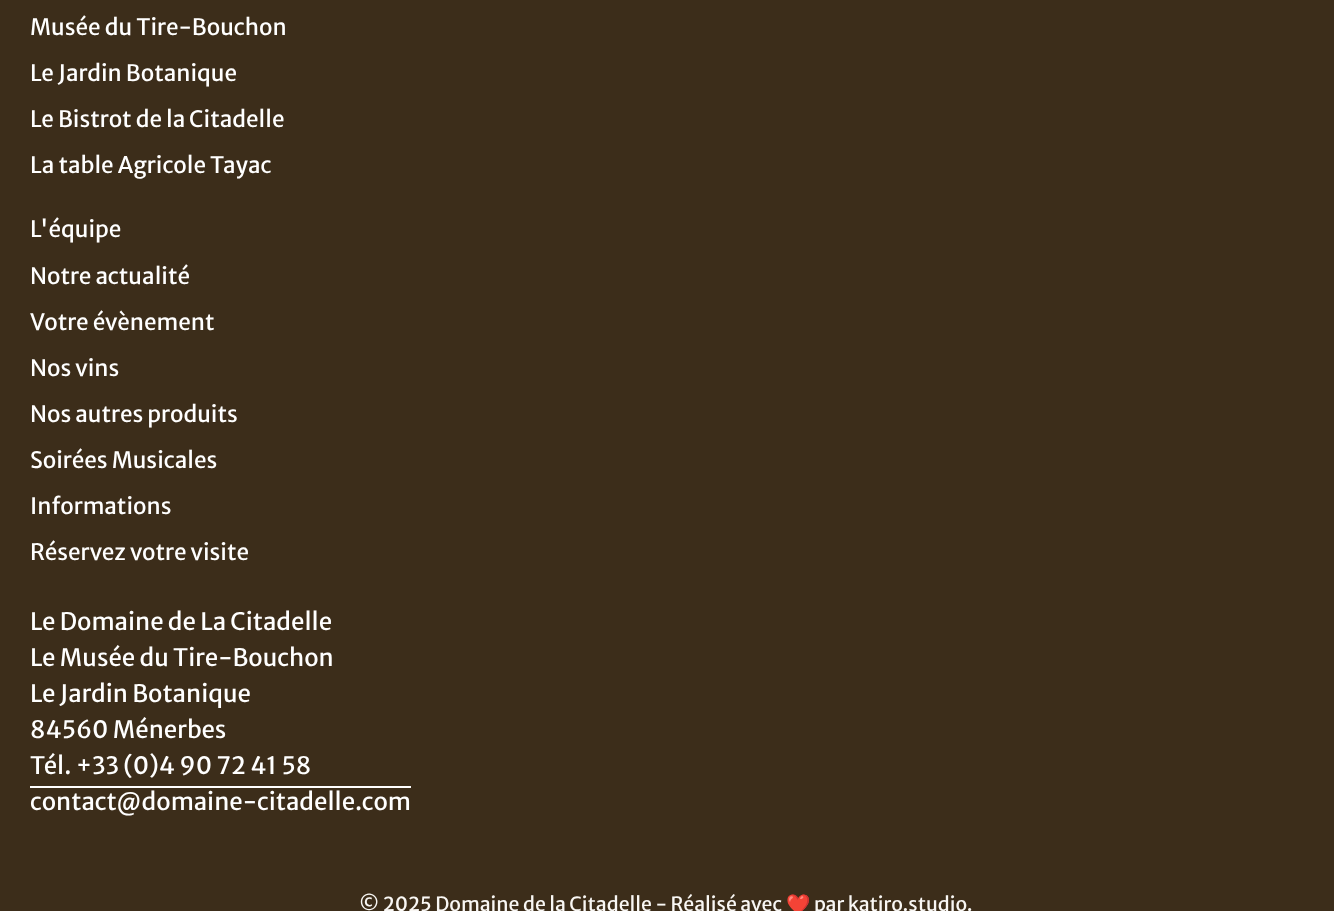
async function draw(canvas) {
  canvas.width = 1334;
  canvas.height = 911;
  const ctx = canvas.getContext('2d');
  ctx.miterLimit = 4;
  ctx.fontKerning = 'normal';
  function label(s, x, y, font, color) {
    ctx.font = font;
    ctx.fillStyle = color;
    ctx.fillText(s, x, y);
  }
  function rect(x, y, w, h, color) {
    ctx.fillStyle = color;
    ctx.fillRect(x, y, w, h);
  }

  rect(0, 0, 1334, 911, '#3c2d1a');
  label('Musée du Tire-Bouchon', 30, 35, '22.5px Merriweather Sans', '#fff');
  label('Le Jardin Botanique', 30, 81, '22.5px Merriweather Sans', '#fff');
  label('Le Bistrot de la Citadelle', 30, 127, '22.5px Merriweather Sans', '#fff');
  label('La table Agricole Tayac', 30, 173, '22.5px Merriweather Sans', '#fff');
  label('L\'équipe', 30, 237, '22.5px Merriweather Sans', '#fff');
  label('Notre actualité', 30, 284, '22.5px Merriweather Sans', '#fff');
  label('Votre évènement', 30, 330, '22.5px Merriweather Sans', '#fff');
  label('Nos vins', 30, 376, '22.5px Merriweather Sans', '#fff');
  label('Nos autres produits', 30, 422, '22.5px Merriweather Sans', '#fff');
  label('Soirées Musicales', 30, 468, '22.5px Merriweather Sans', '#fff');
  label('Informations', 30, 514, '22.5px Merriweather Sans', '#fff');
  label('Réservez votre visite', 30, 560, '22.5px Merriweather Sans', '#fff');
  label('Le Domaine de La Citadelle', 30, 630, '24px Merriweather Sans', '#fff');
  label('Le Musée du Tire-Bouchon', 30, 666, '24px Merriweather Sans', '#fff');
  label('Le Jardin Botanique', 30, 702, '24px Merriweather Sans', '#fff');
  label('84560 Ménerbes', 30, 738, '24px Merriweather Sans', '#fff');
  label('Tél. +33 (0)4 90 72 41 58', 30, 774, '24px Merriweather Sans', '#fff');
  label('contact@domaine-citadelle.com', 30, 810, '24px Merriweather Sans', '#fff');
  rect(30, 786, 381, 2, '#fff');
  label('© 2025 Domaine de la Citadelle - Réalisé avec', 359, 911, '19.5px Merriweather Sans', '#f9f7f4');
  label('❤️', 786, 911, '19.5px Noto Color Emoji', '#f9f7f4');
  label('par katiro.studio.', 814, 911, '19.5px Merriweather Sans', '#f9f7f4');
}

draw(document.querySelector('canvas'));
